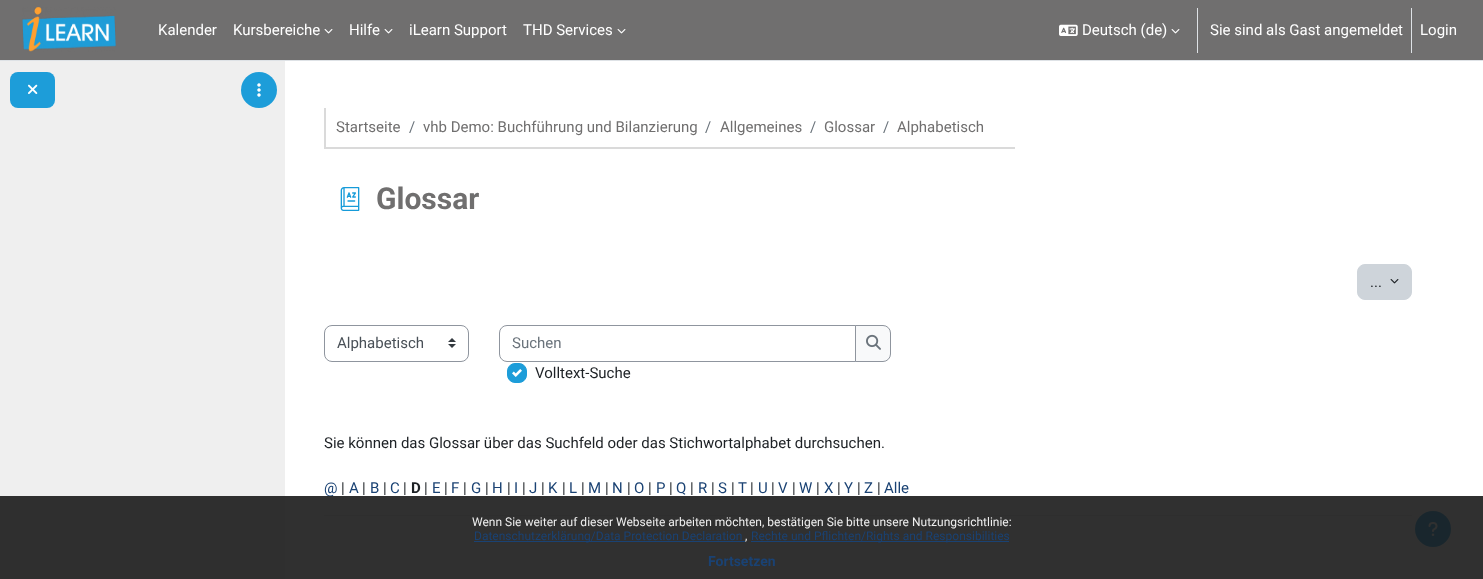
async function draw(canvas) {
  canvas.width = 1483;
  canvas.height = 579;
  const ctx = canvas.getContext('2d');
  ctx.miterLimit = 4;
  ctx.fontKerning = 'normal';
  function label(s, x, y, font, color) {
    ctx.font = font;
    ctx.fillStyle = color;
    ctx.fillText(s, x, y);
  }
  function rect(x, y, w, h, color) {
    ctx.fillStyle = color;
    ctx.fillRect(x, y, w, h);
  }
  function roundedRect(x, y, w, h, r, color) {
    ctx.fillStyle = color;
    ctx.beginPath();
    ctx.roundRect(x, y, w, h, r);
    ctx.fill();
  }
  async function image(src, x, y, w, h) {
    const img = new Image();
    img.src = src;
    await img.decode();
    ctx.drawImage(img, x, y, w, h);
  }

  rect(0, 0, 1483, 579, '#fff');
  rect(0, 0, 1483, 60, '#706f6f');
  rect(0, 60, 1483, 1, '#dee2e6');
  await image('assets/img1.png', 22, 7, 94, 45);
  label('Kalender', 158, 35, '15px Roboto', '#fff');
  label('Kursbereiche', 233, 35, '15px Roboto', '#fff');
  await image('assets/img2.png', 324, 29, 9, 5);
  label('Hilfe', 349, 35, '15px Roboto', '#fff');
  await image('assets/img2.png', 384, 29, 9, 5);
  label('iLearn Support', 409, 35, '15px Roboto', '#fff');
  label('THD Services', 523, 35, '15px Roboto', '#fff');
  await image('assets/img2.png', 617, 29, 9, 5);
  await image('assets/img3.png', 1059, 24, 19, 12);
  label('Deutsch (de)', 1082, 35, '15px Roboto', '#fff');
  await image('assets/img2.png', 1171, 29, 9, 5);
  rect(1197, 8, 1, 45, '#dee2e6');
  label('Sie sind als Gast angemeldet', 1210, 35, '15px Roboto', '#fff');
  rect(1411, 8, 1, 45, '#dee2e6');
  label('Login', 1420, 35, '15px Roboto', '#fff');
  rect(0, 61, 285, 518, '#efefef');
  roundedRect(10, 72, 45, 36, 8, '#1d9dd9');
  await image('assets/img4.png', 28, 84, 10, 10);
  ctx.beginPath();
  ctx.arc(259, 90, 18, 0, 2 * Math.PI);
  ctx.fill();
  await image('assets/img5.png', 257, 83, 4, 14);
  rect(324, 147, 691, 2, '#dadada');
  rect(324, 108, 2, 41, '#dadada');
  label('Startseite', 336, 132, '15px Roboto', '#706f6f');
  label('/', 409, 132, '15px Roboto', '#6a737b');
  label('vhb Demo: Buchführung und Bilanzierung', 423, 132, '15px Roboto', '#706f6f');
  label('/', 705, 132, '15px Roboto', '#6a737b');
  label('Allgemeines', 720, 132, '15px Roboto', '#706f6f');
  label('/', 810, 132, '15px Roboto', '#6a737b');
  label('Glossar', 824, 132, '15px Roboto', '#706f6f');
  label('/', 883, 132, '15px Roboto', '#6a737b');
  label('Alphabetisch', 897, 132, '15px Roboto', '#706f6f');
  await image('assets/img6.png', 340, 187, 20, 24);
  label('Glossar', 376, 209, 'bold 30px Roboto', '#706f6f');
  ctx.fillStyle = '#ced4da';
  ctx.beginPath();
  ctx.roundRect(1357.5, 264.5, 54, 35, 7.5);
  ctx.fill();
  ctx.strokeStyle = '#ced4da';
  ctx.stroke();
  await image('assets/img7.png', 1390, 279, 9, 5);
  label('...', 1370, 287, '15px Roboto', '#1d2125');
  await image('assets/img8.png', 448, 338, 8, 10);
  ctx.beginPath();
  ctx.roundRect(324.5, 325.5, 144, 36, 7.5);
  ctx.strokeStyle = '#8f959e';
  ctx.stroke();
  label('Alphabetisch', 337, 348, '15px Roboto', '#495057');
  ctx.beginPath();
  ctx.roundRect(499.5, 325.5, 356, 36, [7.5, 0, 0, 7.5]);
  ctx.stroke();
  label('Suchen', 512, 348, '15px Roboto', '#6a737b');
  ctx.fillStyle = '#f8f9fa';
  ctx.beginPath();
  ctx.roundRect(855.5, 325.5, 35, 36, [0, 7.5, 7.5, 0]);
  ctx.fill();
  ctx.stroke();
  await image('assets/img9.png', 866, 334, 15, 16);
  ctx.fillStyle = '#1d9dd9';
  ctx.beginPath();
  ctx.roundRect(507.5, 363.5, 19, 19, 7.5);
  ctx.fill();
  ctx.strokeStyle = '#1d9dd9';
  ctx.stroke();
  label('Volltext-Suche', 535, 378, '15px Roboto', '#1d2125');
  await image('assets/img10.png', 512, 369, 10, 8);
  label('Sie können das Glossar über das Suchfeld oder das Stichwortalphabet durchsuchen.', 324, 448, '15px Roboto', '#1d2125');
  label('@', 324, 493, '15px Roboto', '#1a4273');
  label('|', 341, 493, '15px Roboto', '#1d2125');
  label('A', 349, 493, '15px Roboto', '#1a4273');
  label('|', 362, 493, '15px Roboto', '#1d2125');
  label('B', 370, 493, '15px Roboto', '#1a4273');
  label('|', 383, 493, '15px Roboto', '#1d2125');
  label('C', 390, 493, '15px Roboto', '#1a4273');
  label('|', 403, 493, '15px Roboto', '#1d2125');
  label('D', 411, 493, 'bold 15px Roboto', '#1d2125');
  label('|', 424, 493, '15px Roboto', '#1d2125');
  label('E', 432, 493, '15px Roboto', '#1a4273');
  label('|', 444, 493, '15px Roboto', '#1d2125');
  label('F', 451, 493, '15px Roboto', '#1a4273');
  label('|', 463, 493, '15px Roboto', '#1d2125');
  label('G', 471, 493, '15px Roboto', '#1a4273');
  label('|', 485, 493, '15px Roboto', '#1d2125');
  label('H', 492, 493, '15px Roboto', '#1a4273');
  label('|', 507, 493, '15px Roboto', '#1d2125');
  label('I', 514, 493, '15px Roboto', '#1a4273');
  label('|', 522, 493, '15px Roboto', '#1d2125');
  label('J', 529, 493, '15px Roboto', '#1a4273');
  label('|', 541, 493, '15px Roboto', '#1d2125');
  label('K', 548, 493, '15px Roboto', '#1a4273');
  label('|', 562, 493, '15px Roboto', '#1d2125');
  label('L', 569, 493, '15px Roboto', '#1a4273');
  label('|', 581, 493, '15px Roboto', '#1d2125');
  label('M', 588, 493, '15px Roboto', '#1a4273');
  label('|', 605, 493, '15px Roboto', '#1d2125');
  label('N', 612, 493, '15px Roboto', '#1a4273');
  label('|', 627, 493, '15px Roboto', '#1d2125');
  label('O', 634, 493, '15px Roboto', '#1a4273');
  label('|', 648, 493, '15px Roboto', '#1d2125');
  label('P', 656, 493, '15px Roboto', '#1a4273');
  label('|', 669, 493, '15px Roboto', '#1d2125');
  label('Q', 676, 493, '15px Roboto', '#1a4273');
  label('|', 690, 493, '15px Roboto', '#1d2125');
  label('R', 698, 493, '15px Roboto', '#1a4273');
  label('|', 711, 493, '15px Roboto', '#1d2125');
  label('S', 718, 493, '15px Roboto', '#1a4273');
  label('|', 731, 493, '15px Roboto', '#1d2125');
  label('T', 738, 493, '15px Roboto', '#1a4273');
  label('|', 750, 493, '15px Roboto', '#1d2125');
  label('U', 758, 493, '15px Roboto', '#1a4273');
  label('|', 771, 493, '15px Roboto', '#1d2125');
  label('V', 778, 493, '15px Roboto', '#1a4273');
  label('|', 792, 493, '15px Roboto', '#1d2125');
  label('W', 799, 493, '15px Roboto', '#1a4273');
  label('|', 816, 493, '15px Roboto', '#1d2125');
  label('X', 824, 493, '15px Roboto', '#1a4273');
  label('|', 837, 493, '15px Roboto', '#1d2125');
  label('Y', 844, 493, '15px Roboto', '#1a4273');
  label('|', 857, 493, '15px Roboto', '#1d2125');
  label('Z', 864, 493, '15px Roboto', '#1a4273');
  label('|', 877, 493, '15px Roboto', '#1d2125');
  label('Alle', 884, 493, '15px Roboto', '#1a4273');
  rect(324, 515, 1088, 1, '#e6e6e6');
  ctx.fillStyle = '#1d9dd9';
  ctx.beginPath();
  ctx.arc(1433, 529, 18, 0, 2 * Math.PI);
  ctx.fill();
  await image('assets/img11.png', 1428, 522, 10, 14);
  rect(0, 496, 1483, 83, '#191919e6');
  label('Wenn Sie weiter auf dieser Webseite arbeiten möchten, bestätigen Sie bitte unsere Nutzungsrichtlinie:', 472, 526, '12px Roboto', '#efefef');
  rect(474, 541, 271, 1, '#1a4273');
  label('Datenschutzerklärung/Data Protection Declaration', 474, 540, '12px Roboto', '#1a4273');
  label(',', 745, 540, '12px Roboto', '#efefef');
  rect(751, 541, 258, 1, '#1a4273');
  label('Rechte und Pflichten/Rights and Responsibilities', 751, 540, '12px Roboto', '#1a4273');
  label('Fortsetzen', 708, 566, 'bold 14px Roboto', '#1a4273');
}

draw(document.querySelector('canvas'));
